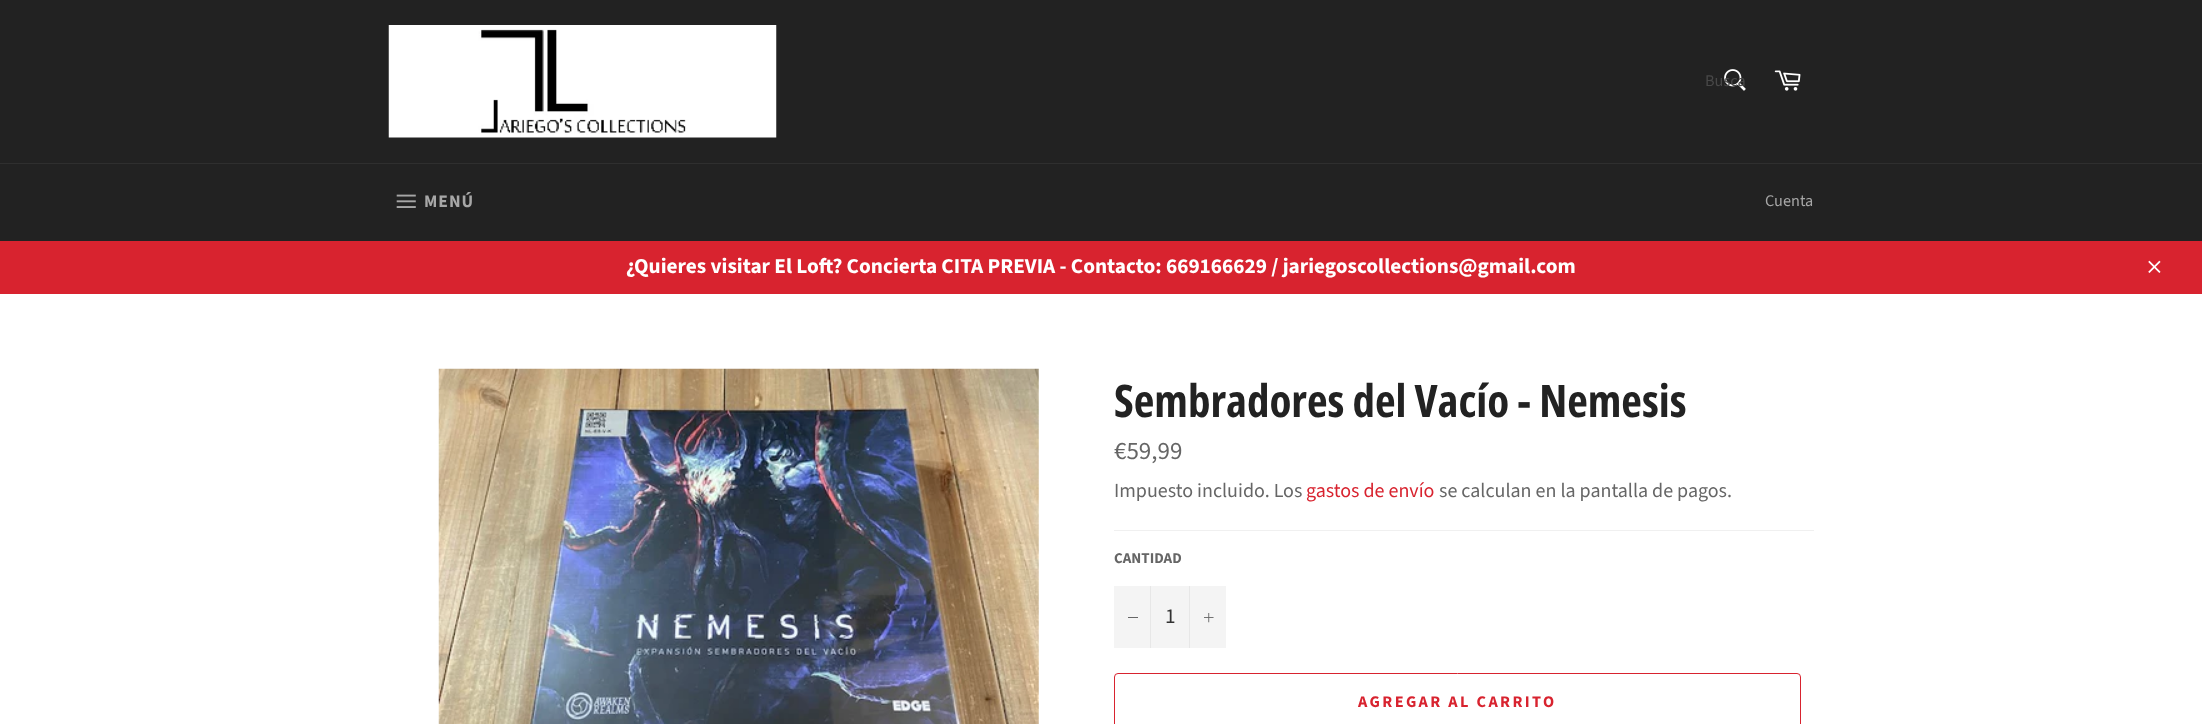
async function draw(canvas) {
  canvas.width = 2202;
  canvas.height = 724;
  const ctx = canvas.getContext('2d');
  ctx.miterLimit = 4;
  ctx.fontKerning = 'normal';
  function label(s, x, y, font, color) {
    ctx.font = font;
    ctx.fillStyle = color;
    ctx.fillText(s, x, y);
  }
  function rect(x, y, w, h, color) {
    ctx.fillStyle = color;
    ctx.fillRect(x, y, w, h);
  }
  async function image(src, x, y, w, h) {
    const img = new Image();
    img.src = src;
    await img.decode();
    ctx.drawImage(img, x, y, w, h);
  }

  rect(0, 0, 2202, 724, '#222');
  await image('assets/img1.png', 388, 25, 389, 113);
  await image('assets/img2.png', 1724, 69, 22, 22);
  label('Busca', 1705, 86, '16.25px Source Sans Pro', '#484848');
  await image('assets/img3.png', 1774, 70, 27, 21);
  rect(0, 163, 2202, 1, '#2f2f2f');
  await image('assets/img4.png', 396, 194, 20, 14);
  ctx.letterSpacing = '1px';
  label('MENÚ', 424, 207, 'bold 17.5px Source Sans Pro', '#a7a7a7');
  ctx.letterSpacing = '0px';
  label('Cuenta', 1765, 206, '16.25px Source Sans Pro', '#a7a7a7');
  rect(0, 241, 2202, 53, '#d8232f');
  label('¿Quieres visitar El Loft? Concierta CITA PREVIA - Contacto: 669166629 / jariegoscollections@gmail.com', 626, 273, 'bold 21.25px Source Sans Pro', '#fff');
  await image('assets/img5.png', 2148, 260, 13, 13);
  rect(0, 294, 2202, 430, '#fff');
  await image('assets/img6.png', 438, 368, 601, 356);
  label('Sembradores del Vacío - Nemesis', 1114, 417, 'bold 45px Open Sans Condensed', '#222');
  label('€59,99', 1114, 459, '25px Source Sans Pro', '#666');
  label('Impuesto incluido. Los', 1114, 497, '20px Source Sans Pro', '#666');
  label('gastos de envío', 1306, 497, '20px Source Sans Pro', '#d8232f');
  label('se calculan en la pantalla de pagos.', 1439, 497, '20px Source Sans Pro', '#666');
  rect(1114, 530, 700, 1, '#f0f0f0');
  label('CANTIDAD', 1114, 563, 'bold 15px Source Sans Pro', '#666');
  rect(1114, 586, 112, 62, '#f4f4f4');
  rect(1150, 586, 1, 62, '#e7e7e7');
  rect(1128, 617, 10, 1, '#666');
  label('1', 1165, 623, '21.25px Source Sans Pro', '#333');
  rect(1189, 586, 1, 62, '#e7e7e7');
  await image('assets/img7.png', 1204, 613, 10, 10);
  ctx.beginPath();
  ctx.roundRect(1114.5, 673.5, 686, 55, 3.5);
  ctx.strokeStyle = '#d8232f';
  ctx.stroke();
  ctx.letterSpacing = '2.4px';
  label('AGREGAR AL CARRITO', 1358, 707, 'bold 16.25px Source Sans Pro', '#d8232f');
}

draw(document.querySelector('canvas'));
